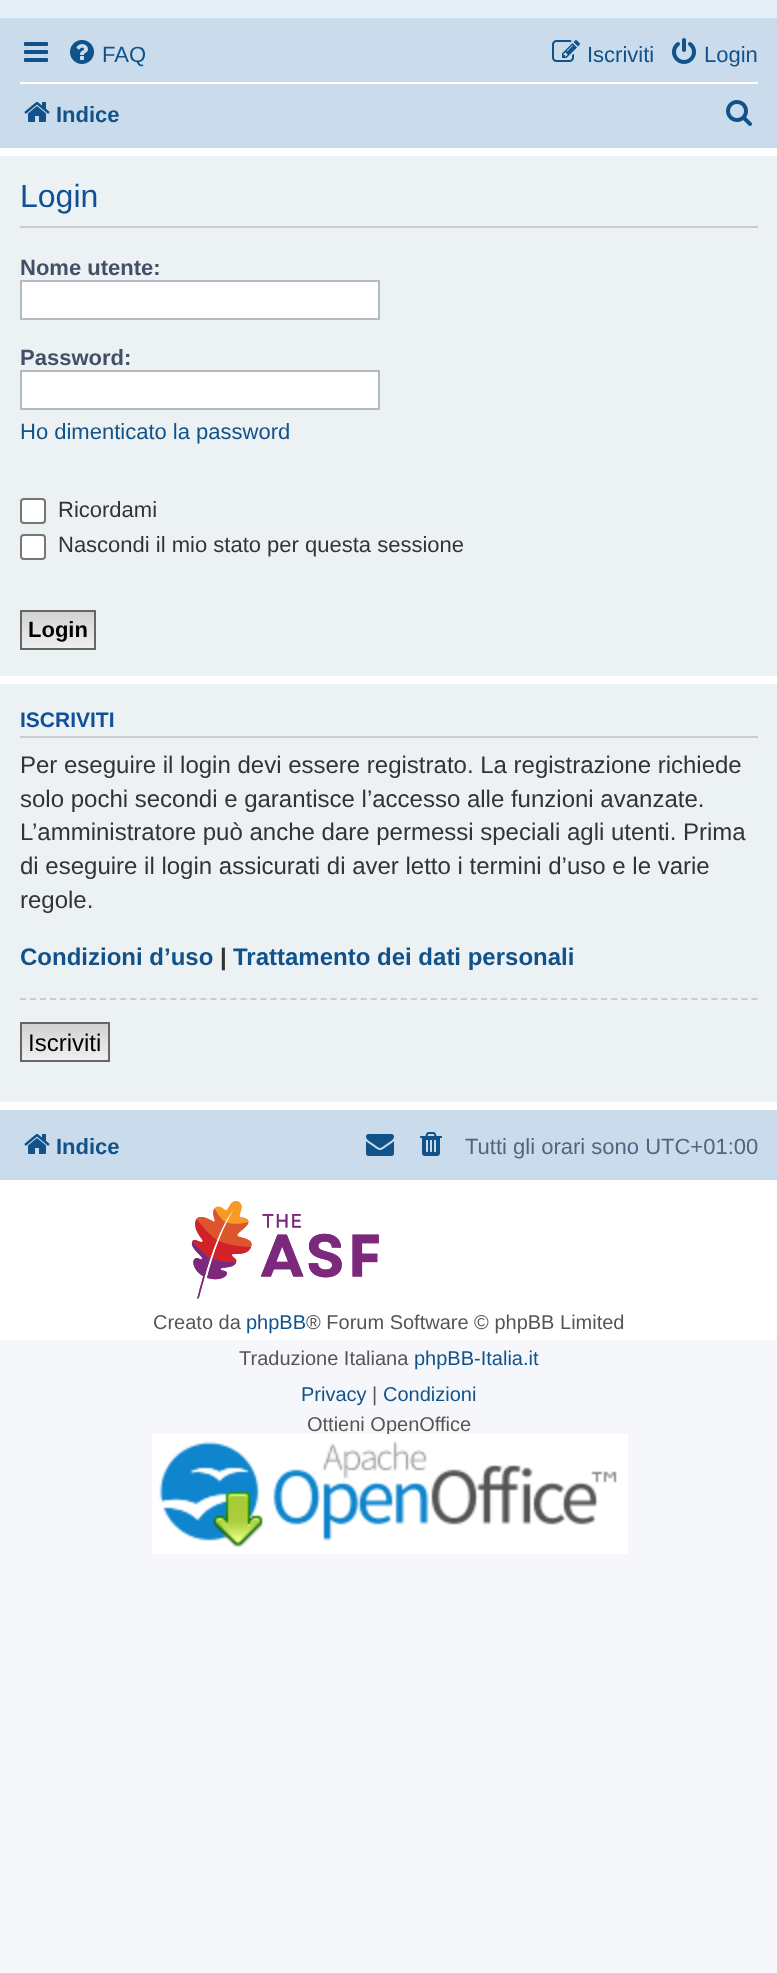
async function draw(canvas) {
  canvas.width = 777;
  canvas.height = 1973;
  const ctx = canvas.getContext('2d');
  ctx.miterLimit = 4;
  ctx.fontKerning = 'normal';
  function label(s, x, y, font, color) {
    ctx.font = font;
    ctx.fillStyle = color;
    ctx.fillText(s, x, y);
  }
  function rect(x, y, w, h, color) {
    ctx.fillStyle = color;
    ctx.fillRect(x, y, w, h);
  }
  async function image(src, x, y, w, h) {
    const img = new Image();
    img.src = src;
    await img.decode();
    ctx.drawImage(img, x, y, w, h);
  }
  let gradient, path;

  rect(0, 0, 777, 1973, '#f5f7fa');
  rect(0, 148, 777, 1192, '#fff');
  rect(0, 0, 777, 18, '#e6eff7');
  rect(0, 18, 777, 130, '#cadceb');
  await image('assets/img1.png', 24, 42, 24, 20);
  await image('assets/img2.png', 70, 40, 24, 24);
  label('FAQ', 102, 62, '22px Liberation Sans', '#105289');
  await image('assets/img3.png', 552, 40, 28, 22);
  label('Iscriviti', 587, 62, '22px Liberation Sans', '#105289');
  await image('assets/img4.png', 672, 38, 24, 26);
  label('Login', 704, 62, '22px Liberation Sans', '#105289');
  rect(20, 82, 738, 2, '#fff');
  await image('assets/img5.png', 24, 102, 26, 20);
  label('Indice', 56, 122, 'bold 22px Liberation Sans', '#105289');
  await image('assets/img6.png', 726, 100, 26, 26);
  rect(0, 156, 777, 520, '#ecf1f3');
  rect(20, 226, 738, 2, '#ccc');
  label('Login', 20, 207, '32px Liberation Sans', '#115098');
  label('Nome utente:', 20, 275, 'bold 22px Liberation Sans', '#425067');
  ctx.fillStyle = '#fff';
  ctx.beginPath();
  ctx.rect(21, 281, 358, 38);
  ctx.fill();
  ctx.strokeStyle = '#b4bac0';
  ctx.lineWidth = 2;
  ctx.stroke();
  label('Password:', 20, 365, 'bold 22px Liberation Sans', '#425067');
  ctx.fillStyle = '#fff';
  ctx.beginPath();
  ctx.rect(21, 371, 358, 38);
  ctx.fill();
  ctx.stroke();
  label('Ho dimenticato la password', 20, 439, '22px Liberation Sans', '#105289');
  ctx.fillStyle = '#fff';
  ctx.beginPath();
  ctx.roundRect(21, 499, 24, 24, 3);
  ctx.fill();
  ctx.strokeStyle = '#767676';
  ctx.stroke();
  label('Ricordami', 58, 517, '22px Liberation Sans', '#333');
  ctx.fillStyle = '#fff';
  ctx.beginPath();
  ctx.roundRect(21, 535, 24, 24, 3);
  ctx.fill();
  ctx.stroke();
  label('Nascondi il mio stato per questa sessione', 58, 552, '22px Liberation Sans', '#333');
  gradient = ctx.createLinearGradient(58, 612, 58, 648);
  gradient.addColorStop(0, '#d2d2d2');
  gradient.addColorStop(1, '#efefef');
  ctx.fillStyle = gradient;
  ctx.fillRect(22, 612, 72, 36);
  ctx.strokeStyle = '#666';
  ctx.strokeRect(21, 611, 74, 38);
  label('Login', 28, 637, 'bold 22px Liberation Sans', '#000');
  rect(0, 684, 777, 418, '#ecf1f3');
  rect(20, 736, 738, 2, '#ccc');
  label('ISCRIVITI', 20, 727, 'bold 21px Liberation Sans', '#115098');
  label('Per eseguire il login devi essere registrato. La registrazione richiede', 20, 773, '24px Liberation Sans', '#333');
  label('solo pochi secondi e garantisce l’accesso alle funzioni avanzate.', 20, 807, '24px Liberation Sans', '#333');
  label('L’amministratore può anche dare permessi speciali agli utenti. Prima', 20, 840, '24px Liberation Sans', '#333');
  label('di eseguire il login assicurati di aver letto i termini d’uso e le varie', 20, 874, '24px Liberation Sans', '#333');
  label('regole.', 20, 908, '24px Liberation Sans', '#333');
  label('Condizioni d’uso', 20, 965, 'bold 24px Liberation Sans', '#105289');
  label('|', 220, 965, 'bold 24px Liberation Sans', '#333');
  label('Trattamento dei dati personali', 233, 965, 'bold 24px Liberation Sans', '#105289');
  path = new Path2D('M20 999H758');
  ctx.strokeStyle = '#ccc';
  ctx.setLineDash([6, 4.02]);
  ctx.stroke(path);
  gradient = ctx.createLinearGradient(65, 1024, 65, 1060);
  gradient.addColorStop(0, '#d2d2d2');
  gradient.addColorStop(1, '#efefef');
  ctx.fillStyle = gradient;
  ctx.fillRect(22, 1024, 86, 36);
  ctx.strokeStyle = '#666';
  ctx.setLineDash([]);
  ctx.strokeRect(21, 1023, 88, 38);
  label('Iscriviti', 28, 1051, '24px Liberation Sans', '#000');
  rect(0, 1110, 777, 70, '#cadceb');
  await image('assets/img5.png', 24, 1134, 26, 20);
  label('Indice', 56, 1154, 'bold 22px Liberation Sans', '#105289');
  await image('assets/img7.png', 366, 1134, 28, 22);
  await image('assets/img8.png', 420, 1132, 22, 24);
  label('Tutti gli orari sono UTC+01:00', 465, 1154, '22px Liberation Sans', '#536482');
  await image('assets/img9.png', 191, 1201, 188, 98);
  await image('assets/img10.png', 191, 1201, 188, 98);
  label('Creato da', 153, 1329, '20px Liberation Sans', '#555');
  label('phpBB', 246, 1329, '20px Liberation Sans', '#105289');
  label('® Forum Software © phpBB Limited', 306, 1329, '20px Liberation Sans', '#555');
  label('Traduzione Italiana', 239, 1365, '20px Liberation Sans', '#555');
  label('phpBB-Italia.it', 414, 1365, '20px Liberation Sans', '#105289');
  label('Privacy', 301, 1401, '20px Liberation Sans', '#105289');
  label('|', 372, 1401, '20px Liberation Sans', '#555');
  label('Condizioni', 383, 1401, '20px Liberation Sans', '#105289');
  label('Ottieni OpenOffice', 307, 1431, '20px Liberation Sans', '#555');
  await image('assets/img11.png', 152, 1434, 476, 120);
}

draw(document.querySelector('canvas'));
